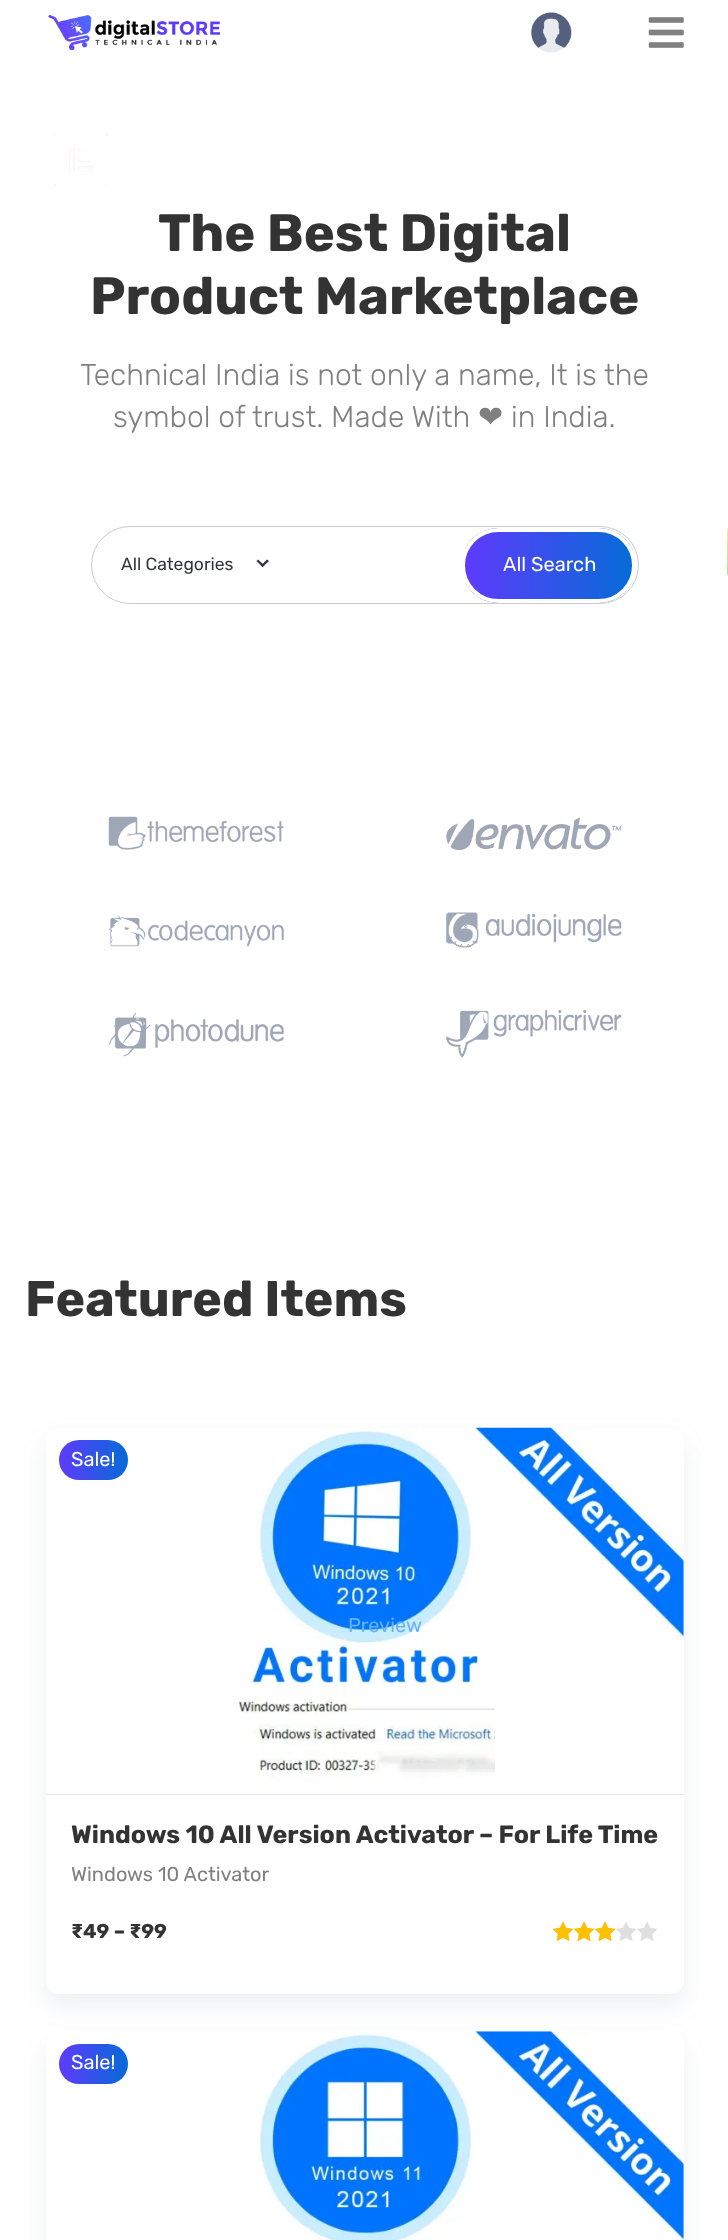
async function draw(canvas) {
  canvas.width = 728;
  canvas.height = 2240;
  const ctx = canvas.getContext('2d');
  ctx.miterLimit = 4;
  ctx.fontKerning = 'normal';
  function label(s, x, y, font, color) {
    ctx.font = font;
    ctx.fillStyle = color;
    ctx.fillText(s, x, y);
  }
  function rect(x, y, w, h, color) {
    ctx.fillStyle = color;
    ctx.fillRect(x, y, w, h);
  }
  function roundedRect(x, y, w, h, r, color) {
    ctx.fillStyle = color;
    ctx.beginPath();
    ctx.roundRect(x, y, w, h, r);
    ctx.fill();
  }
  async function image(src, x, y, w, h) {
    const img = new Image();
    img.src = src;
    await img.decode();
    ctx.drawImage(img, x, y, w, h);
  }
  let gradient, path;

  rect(0, 0, 728, 2240, '#fff');
  await image('assets/img1.png', 48, 15, 172, 35);
  await image('assets/img2.png', 531, 12, 41, 41);
  await image('assets/img3.png', 648, 17, 36, 31);
  await image('assets/img4.png', 54, 134, 674, 442);
  label('The Best Digital', 158, 251, 'bold 52.5px Rubik', '#333');
  label('Product Marketplace', 90, 314, 'bold 52.5px Rubik', '#333');
  label('Technical India is not only a name, It is the', 80, 385, '300 30px Rubik', '#808080');
  label('symbol of trust. Made With', 113, 427, '300 30px Rubik', '#808080');
  label('❤', 478, 427, '30px DejaVu Sans', '#808080');
  label('in India.', 511, 427, '300 30px Rubik', '#808080');
  ctx.beginPath();
  ctx.roundRect(91.5, 526.5, 547, 77, 38.5);
  ctx.strokeStyle = '#ccc';
  ctx.stroke();
  label('All Categories', 121, 570, '17.5px Rubik', '#30353d');
  path = new Path2D('M267 559.5L269 561L262.5 567L261 565.5Z');
  ctx.fill(path);
  path = new Path2D('M258 559.5L264.5 565.5L262.5 567L256.5 561Z');
  ctx.fill(path);
  ctx.save();
  ctx.beginPath();
  ctx.roundRect(461, 528, 175, 75, 37.5);
  ctx.clip();
  gradient = ctx.createLinearGradient(465, 565, 633, 565);
  gradient.addColorStop(0, '#5f3afc');
  gradient.addColorStop(1, '#066bd7');
  ctx.fillStyle = gradient;
  ctx.fillRect(465, 528, 168, 75);
  ctx.restore();
  ctx.beginPath();
  ctx.roundRect(463, 530, 171, 71, 35.5);
  ctx.strokeStyle = '#fff';
  ctx.lineWidth = 4;
  ctx.stroke();
  label('All Search', 503, 571, '20px Rubik', '#fff');
  await image('assets/img5.png', 108, 816, 176, 34);
  await image('assets/img6.png', 446, 817, 176, 33);
  await image('assets/img7.png', 108, 916, 176, 31);
  await image('assets/img8.png', 446, 912, 176, 36);
  await image('assets/img9.png', 108, 1012, 176, 45);
  await image('assets/img10.png', 446, 1010, 176, 48);
  label('Featured Items', 25, 1316, 'bold 50px Rubik', '#333');
  ctx.fillStyle = '#61698c1a';
  ctx.filter = 'blur(12.5px)';
  ctx.beginPath();
  ctx.roundRect(46, 1440, 638, 566, 13);
  ctx.fill();
  ctx.filter = 'none';
  roundedRect(46, 1428, 638, 566, 13, '#fff');
  rect(46, 1794, 638, 1, '#ebebeb');
  gradient = ctx.createLinearGradient(59, 1460, 128, 1460);
  gradient.addColorStop(0, '#5f3afc');
  gradient.addColorStop(1, '#066bd7');
  ctx.fillStyle = gradient;
  ctx.beginPath();
  ctx.roundRect(59, 1440, 69, 40, 20);
  ctx.fill();
  label('Sale!', 71, 1466, '20px Rubik', '#fff');
  await image('assets/img11.png', 236, 1427, 448, 355);
  label('Preview', 348, 1632, '20px Rubik', '#65b1fa');
  label('Windows 10 All Version Activator – For Life Time', 71, 1843, 'bold 25px Rubik', '#333');
  label('Windows 10 Activator', 71, 1881, '20px Rubik', '#808080');
  label('₹49 – ₹99', 71, 1938, 'bold 20px Rubik', '#333');
  await image('assets/img12.png', 553, 1921, 104, 20);
  await image('assets/img13.png', 553, 1921, 63, 21);
  ctx.fillStyle = '#61698c1a';
  ctx.filter = 'blur(12.5px)';
  ctx.beginPath();
  ctx.roundRect(46, 2044, 638, 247, 13);
  ctx.fill();
  ctx.filter = 'none';
  roundedRect(46, 2031, 638, 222, 13, '#fff');
  gradient = ctx.createLinearGradient(59, 2064, 128, 2064);
  gradient.addColorStop(0, '#5f3afc');
  gradient.addColorStop(1, '#066bd7');
  ctx.fillStyle = gradient;
  ctx.beginPath();
  ctx.roundRect(59, 2044, 69, 40, 20);
  ctx.fill();
  label('Sale!', 71, 2069, '20px Rubik', '#fff');
  await image('assets/img14.png', 259, 2031, 425, 209);
}

draw(document.querySelector('canvas'));
